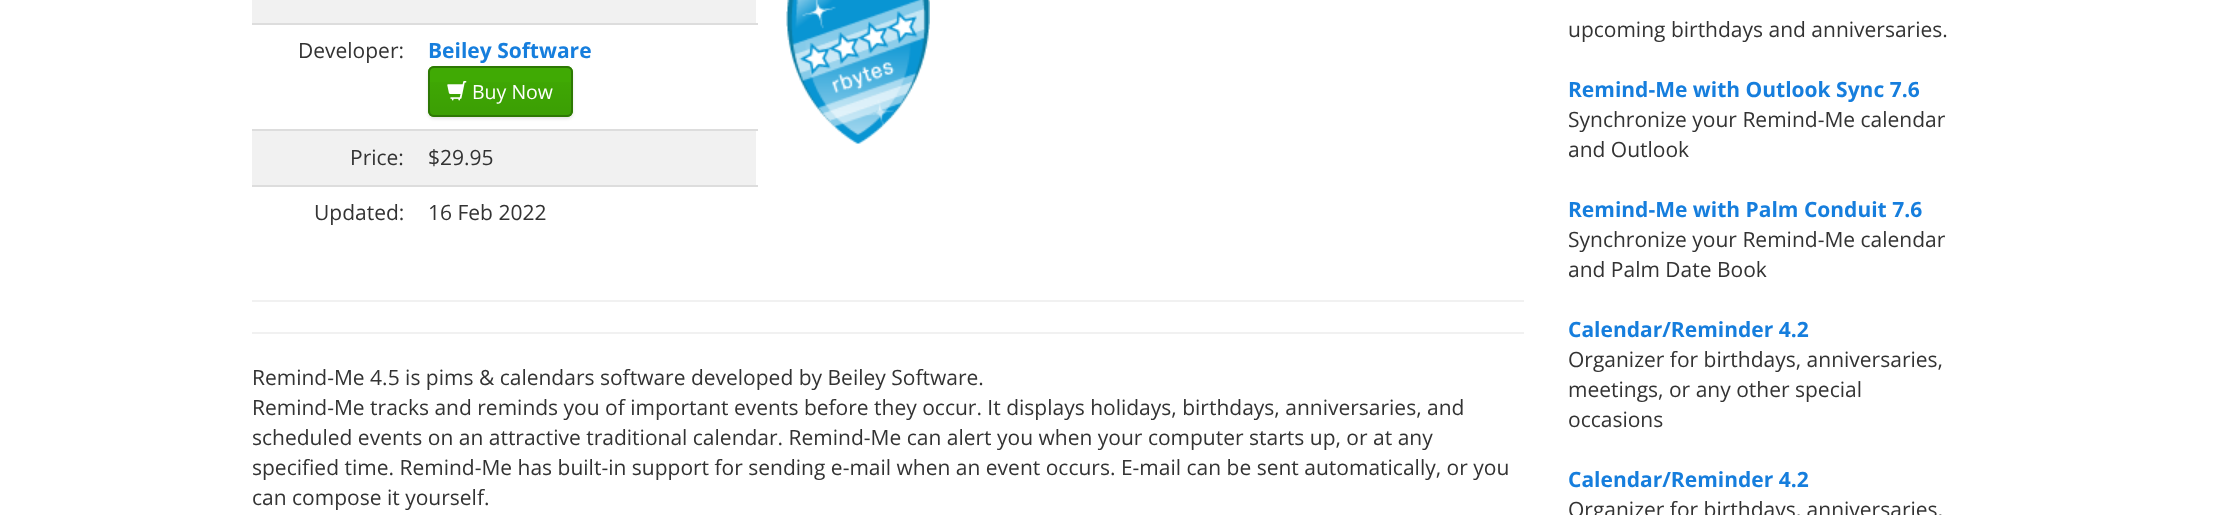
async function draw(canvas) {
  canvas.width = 2213;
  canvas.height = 515;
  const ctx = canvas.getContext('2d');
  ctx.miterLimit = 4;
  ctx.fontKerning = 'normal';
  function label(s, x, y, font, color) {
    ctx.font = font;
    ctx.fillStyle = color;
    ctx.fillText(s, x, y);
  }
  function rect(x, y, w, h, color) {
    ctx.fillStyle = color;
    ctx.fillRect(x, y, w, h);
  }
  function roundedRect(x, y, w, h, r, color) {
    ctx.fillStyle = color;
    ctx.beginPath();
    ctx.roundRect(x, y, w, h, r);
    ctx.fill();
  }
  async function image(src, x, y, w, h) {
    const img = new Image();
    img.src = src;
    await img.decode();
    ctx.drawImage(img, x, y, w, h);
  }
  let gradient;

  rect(0, 0, 2213, 515, '#fff');
  rect(252, 0, 504, 23, '#f1f1f1');
  label('Developer:', 298, 58, '21px Open Sans', '#333');
  rect(252, 23, 506, 2, '#ddd');
  label('Beiley Software', 428, 58, 'bold 21px Open Sans', '#167edd');
  ctx.fillStyle = '#0000001a';
  ctx.filter = 'blur(1.5px)';
  ctx.beginPath();
  ctx.roundRect(428, 68, 145, 51, 6);
  ctx.fill();
  ctx.filter = 'none';
  roundedRect(428, 66, 145, 51, 6, '#40aa04');
  ctx.save();
  ctx.beginPath();
  ctx.roundRect(428, 66, 145, 51, 6);
  ctx.clip();
  gradient = ctx.createLinearGradient(500, 67, 500, 116);
  gradient.addColorStop(0, '#00000000');
  gradient.addColorStop(1, '#00000012');
  ctx.fillStyle = gradient;
  ctx.fillRect(428, 82, 145, 34);
  ctx.restore();
  ctx.beginPath();
  ctx.roundRect(429, 67, 143, 49, 5);
  ctx.strokeStyle = '#2d7803';
  ctx.lineWidth = 2;
  ctx.stroke();
  await image('assets/img1.png', 447, 81, 20, 20);
  label('Buy Now', 472, 99, '19.5px Open Sans', '#fff');
  rect(252, 131, 504, 54, '#f1f1f1');
  label('Price:', 350, 165, '21px Open Sans', '#333');
  rect(252, 129, 506, 2, '#ddd');
  label('$29.95', 428, 165, '21px Open Sans', '#333');
  label('Updated:', 314, 220, '21px Open Sans', '#333');
  rect(252, 185, 506, 2, '#ddd');
  label('16 Feb 2022', 428, 220, '21px Open Sans', '#333');
  await image('assets/img2.png', 786, 0, 144, 144);
  rect(252, 300, 1272, 2, '#f1f1f1');
  rect(252, 332, 1272, 2, '#f1f1f1');
  label('Remind-Me 4.5 is pims & calendars software developed by Beiley Software.', 252, 385, '21px Open Sans', '#333');
  label('Remind-Me tracks and reminds you of important events before they occur. It displays holidays, birthdays, anniversaries, and', 252, 415, '21px Open Sans', '#333');
  label('scheduled events on an attractive traditional calendar. Remind-Me can alert you when your computer starts up, or at any', 252, 445, '21px Open Sans', '#333');
  label('specified time. Remind-Me has built-in support for sending e-mail when an event occurs. E-mail can be sent automatically, or you', 252, 475, '21px Open Sans', '#333');
  label('can compose it yourself.', 252, 505, '21px Open Sans', '#333');
  label('upcoming birthdays and anniversaries.', 1568, 37, '21px Open Sans', '#333');
  label('Remind-Me with Outlook Sync 7.6', 1568, 97, 'bold 21px Open Sans', '#167edd');
  label('Synchronize your Remind-Me calendar', 1568, 127, '21px Open Sans', '#333');
  label('and Outlook', 1568, 157, '21px Open Sans', '#333');
  label('Remind-Me with Palm Conduit 7.6', 1568, 217, 'bold 21px Open Sans', '#167edd');
  label('Synchronize your Remind-Me calendar', 1568, 247, '21px Open Sans', '#333');
  label('and Palm Date Book', 1568, 277, '21px Open Sans', '#333');
  label('Calendar/Reminder 4.2', 1568, 337, 'bold 21px Open Sans', '#167edd');
  label('Organizer for birthdays, anniversaries,', 1568, 367, '21px Open Sans', '#333');
  label('meetings, or any other special', 1568, 397, '21px Open Sans', '#333');
  label('occasions', 1568, 427, '21px Open Sans', '#333');
  label('Calendar/Reminder 4.2', 1568, 487, 'bold 21px Open Sans', '#167edd');
  label('Organizer for birthdays, anniversaries,', 1568, 517, '21px Open Sans', '#333');
}

draw(document.querySelector('canvas'));
